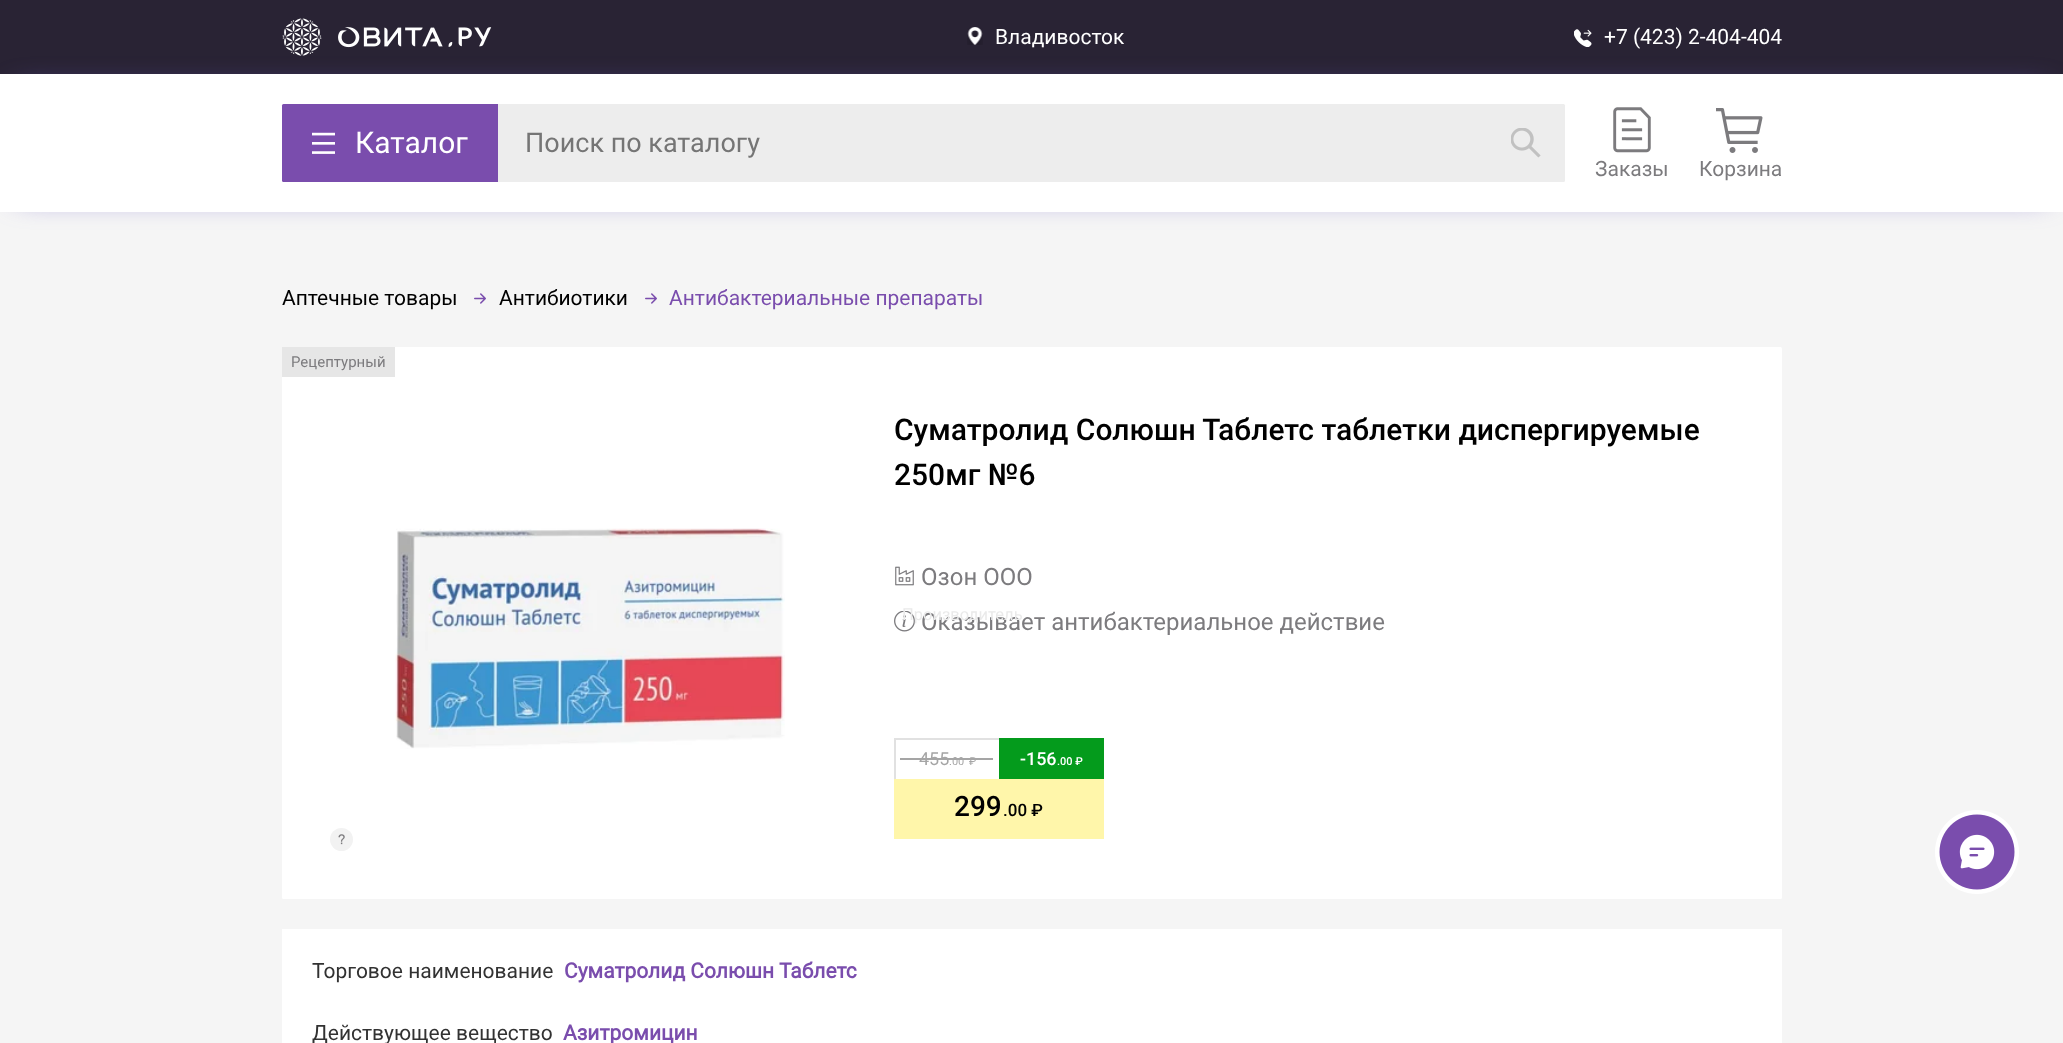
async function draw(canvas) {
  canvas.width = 2063;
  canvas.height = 1043;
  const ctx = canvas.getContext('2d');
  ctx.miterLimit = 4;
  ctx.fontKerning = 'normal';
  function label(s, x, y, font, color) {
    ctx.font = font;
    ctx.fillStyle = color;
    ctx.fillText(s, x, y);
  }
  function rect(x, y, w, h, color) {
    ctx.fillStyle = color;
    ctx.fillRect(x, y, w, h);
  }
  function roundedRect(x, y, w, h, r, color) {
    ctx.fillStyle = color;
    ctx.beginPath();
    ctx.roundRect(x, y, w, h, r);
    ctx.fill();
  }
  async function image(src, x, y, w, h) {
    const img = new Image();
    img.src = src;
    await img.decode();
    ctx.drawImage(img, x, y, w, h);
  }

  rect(0, 0, 2063, 1043, '#f5f5f5');
  rect(0, 0, 2063, 74, '#292334');
  ctx.fillStyle = '#6a5acd';
  ctx.filter = 'blur(15px)';
  ctx.beginPath();
  ctx.rect(18, 92, 2028, 102);
  ctx.fill();
  ctx.filter = 'none';
  await image('assets/img1.png', 282, 18, 210, 38);
  await image('assets/img2.png', 967, 27, 16, 18);
  label('Владивосток', 995, 44, '21px Roboto', '#fff');
  await image('assets/img3.png', 1574, 29, 18, 18);
  label('+7 (423) 2-404-404', 1604, 44, '21px Roboto', '#fff');
  rect(0, 74, 2063, 138, '#fff');
  ctx.fillStyle = '#7a4dad';
  ctx.beginPath();
  ctx.roundRect(282, 104, 216, 78, [1.5, 0, 0, 1.5]);
  ctx.fill();
  await image('assets/img4.png', 312, 132, 23, 22);
  label('Каталог', 355, 153, '30px Roboto', '#fff');
  rect(498, 104, 989, 78, '#ededed');
  label('Поиск по каталогу', 525, 152, '27px Roboto', '#757575');
  ctx.fillStyle = '#ededed';
  ctx.beginPath();
  ctx.roundRect(1487, 104, 78, 78, [0, 1.5, 1.5, 0]);
  ctx.fill();
  await image('assets/img5.png', 1511, 128, 30, 30);
  await image('assets/img6.png', 1613, 107, 38, 46);
  label('Заказы', 1595, 176, '21px Roboto', '#7c7b7e');
  await image('assets/img7.png', 1716, 108, 47, 45);
  label('Корзина', 1699, 176, '21px Roboto', '#7c7b7e');
  label('Аптечные товары', 282, 305, '21px Roboto', '#000');
  await image('assets/img8.png', 474, 293, 12, 11);
  label('Антибиотики', 499, 305, '21px Roboto', '#000');
  await image('assets/img8.png', 645, 293, 12, 11);
  label('Антибактериальные препараты', 669, 305, '21px Roboto', '#7a4dad');
  roundedRect(282, 347, 1500, 552, 1.5, '#fff');
  rect(282, 347, 113, 30, '#e6e6e6');
  label('Рецептурный', 291, 367, '15px Roboto', '#7c7b7e');
  await image('assets/img9.png', 395, 528, 390, 221);
  ctx.fillStyle = '#f2f2f2';
  ctx.beginPath();
  ctx.arc(341.5, 839.5, 11.5, 0, 2 * Math.PI);
  ctx.fill();
  await image('assets/img10.png', 338, 834, 7, 11);
  label('Суматролид Солюшн Таблетс таблетки диспергируемые', 894, 440, '500 30px Roboto', '#000');
  label('250мг №6', 894, 485, '500 30px Roboto', '#000');
  await image('assets/img11.png', 895, 566, 19, 20);
  label('Озон ООО', 921, 585, '24px Roboto', '#7c7b7e');
  await image('assets/img12.png', 894, 611, 21, 21);
  label('Оказывает антибактериальное действие', 921, 630, '24px Roboto', '#7c7b7e');
  label('Производитель', 902, 620, '16.5px Roboto', '#eaeaea');
  rect(894, 738, 105, 2, '#e1e1e1');
  rect(894, 738, 2, 41, '#e1e1e1');
  label('455', 919, 765, '18px Roboto', '#a5a5a5');
  label('.00', 949, 765, '11px Roboto', '#a5a5a5');
  label('₽', 969, 765, '11px Roboto', '#a5a5a5');
  rect(900, 758, 93, 2, '#a5a5a5');
  rect(999, 738, 105, 41, '#049b1c');
  label('-156', 1020, 765, '500 18px Roboto', '#fff');
  label('.00 ₽', 1057, 765, '500 11px Roboto', '#fff');
  rect(894, 779, 210, 60, '#fff6aa');
  label('299', 954, 816, '500 28px Roboto', '#000');
  label('.00 ₽', 1003, 816, '500 17px Roboto', '#000');
  rect(282, 929, 1500, 114, '#fff');
  label('Торговое наименование', 312, 978, '21px Roboto', '#323232');
  label('Суматролид Солюшн Таблетс', 564, 978, 'bold 21px Roboto', '#7a4dad');
  label('Действующее вещество', 312, 1040, '21px Roboto', '#323232');
  label('Азитромицин', 563, 1040, 'bold 21px Roboto', '#7a4dad');
  await image('assets/img13.png', 1935, 810, 84, 84);
}

draw(document.querySelector('canvas'));
